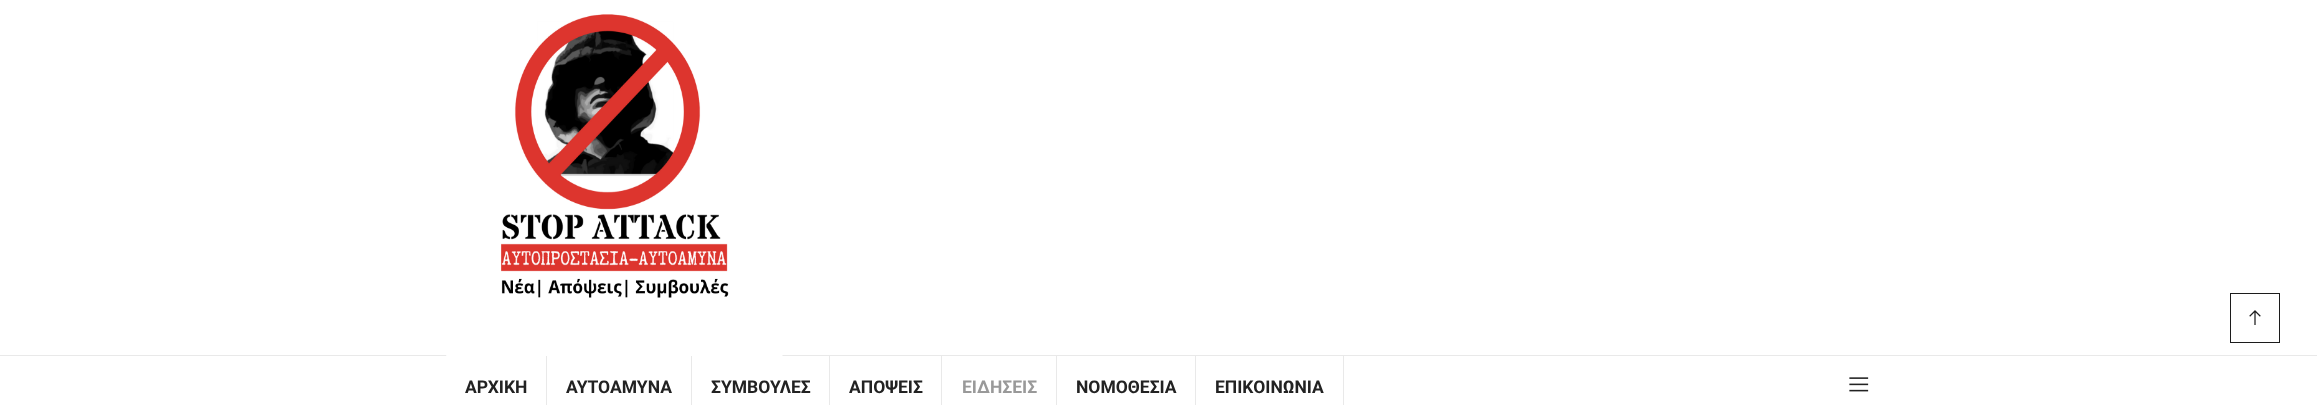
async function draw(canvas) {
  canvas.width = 2317;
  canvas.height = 405;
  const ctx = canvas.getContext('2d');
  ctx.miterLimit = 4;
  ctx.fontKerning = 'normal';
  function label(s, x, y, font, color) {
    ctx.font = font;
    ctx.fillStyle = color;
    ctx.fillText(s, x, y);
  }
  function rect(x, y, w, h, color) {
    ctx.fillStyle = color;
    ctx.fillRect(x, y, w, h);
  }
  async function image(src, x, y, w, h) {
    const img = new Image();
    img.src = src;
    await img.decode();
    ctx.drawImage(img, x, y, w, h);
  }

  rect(0, 0, 2317, 405, '#fff');
  ctx.strokeStyle = '#1c1c1c';
  ctx.strokeRect(2230.5, 293.5, 49, 49);
  await image('assets/img1.png', 2249, 310, 12, 15);
  rect(0, 355, 2317, 1, '#e9e9e9');
  await image('assets/img2.png', 446, 14, 337, 342);
  rect(546, 356, 1, 49, '#e9e9e9');
  label('ΑΡΧΙΚΗ', 465, 393, 'bold 17.5px Roboto', '#222');
  rect(691, 356, 1, 49, '#e9e9e9');
  label('ΑΥΤΟΑΜΥΝΑ', 566, 393, 'bold 17.5px Roboto', '#222');
  rect(829, 356, 1, 49, '#e9e9e9');
  label('ΣΥΜΒΟΥΛΕΣ', 711, 393, 'bold 17.5px Roboto', '#222');
  rect(941, 356, 1, 49, '#e9e9e9');
  label('ΑΠΟΨΕΙΣ', 849, 393, 'bold 17.5px Roboto', '#222');
  rect(1056, 356, 1, 49, '#e9e9e9');
  label('ΕΙΔΗΣΕΙΣ', 962, 393, 'bold 17.5px Roboto', '#999');
  rect(1195, 356, 1, 49, '#e9e9e9');
  label('ΝΟΜΟΘΕΣΙΑ', 1076, 393, 'bold 17.5px Roboto', '#222');
  rect(1343, 356, 1, 49, '#e9e9e9');
  label('ΕΠΙΚΟΙΝΩΝΙΑ', 1215, 393, 'bold 17.5px Roboto', '#222');
  await image('assets/img3.png', 1849, 377, 20, 15);
}

draw(document.querySelector('canvas'));
